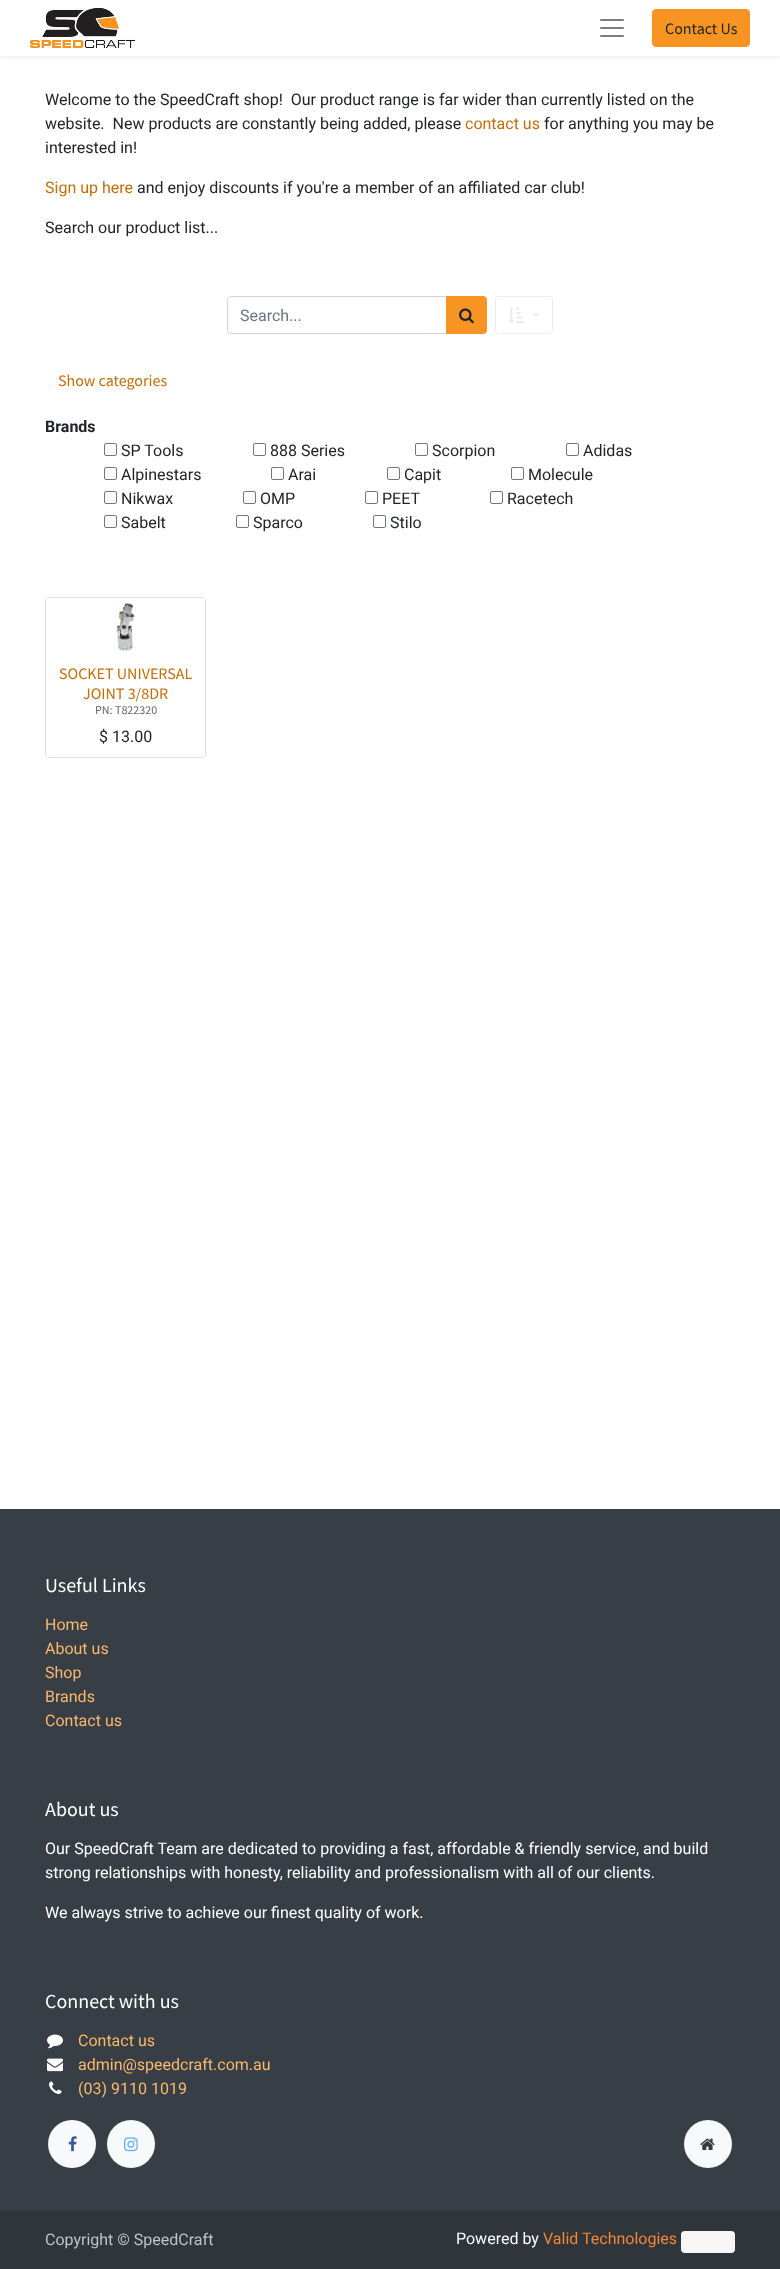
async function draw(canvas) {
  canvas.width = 780;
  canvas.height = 2269;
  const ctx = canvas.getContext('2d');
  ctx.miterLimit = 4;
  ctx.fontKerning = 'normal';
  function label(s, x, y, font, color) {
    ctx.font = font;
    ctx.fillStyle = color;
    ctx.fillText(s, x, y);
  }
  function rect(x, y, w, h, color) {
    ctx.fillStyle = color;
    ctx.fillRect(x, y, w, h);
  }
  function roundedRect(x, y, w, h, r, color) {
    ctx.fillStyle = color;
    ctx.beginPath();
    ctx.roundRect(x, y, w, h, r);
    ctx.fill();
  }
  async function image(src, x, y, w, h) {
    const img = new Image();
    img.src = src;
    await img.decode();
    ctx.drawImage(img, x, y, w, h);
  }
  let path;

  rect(0, 0, 780, 2269, '#fff');
  ctx.save();
  ctx.beginPath();
  ctx.rect(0, 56, 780, 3);
  ctx.clip();
  ctx.fillStyle = '#00000012';
  ctx.filter = 'blur(2px)';
  ctx.beginPath();
  ctx.rect(0, 2, 780, 56);
  ctx.fill();
  ctx.filter = 'none';
  ctx.restore();
  await image('assets/img1.png', 30, 8, 105, 40);
  await image('assets/img2.png', 600, 19, 24, 18);
  ctx.fillStyle = '#f79422';
  ctx.beginPath();
  ctx.roundRect(652.5, 9.5, 97, 37, 3.5);
  ctx.fill();
  ctx.strokeStyle = '#f79422';
  ctx.stroke();
  label('Contact Us', 665, 34, '16px Source Sans Pro', '#212529');
  label('Welcome to the SpeedCraft shop!  Our product range is far wider than currently listed on the', 45, 105, '16px Roboto', '#212529');
  label('website.  New products are constantly being added, please', 45, 129, '16px Roboto', '#212529');
  label('contact us', 465, 129, '16px Roboto', '#c56d07');
  label('for anything you may be', 544, 129, '16px Roboto', '#212529');
  label('interested in!', 45, 153, '16px Roboto', '#212529');
  label('Sign up here', 45, 193, '16px Roboto', '#c56d07');
  label('and enjoy discounts if you\'re a member of an affiliated car club!', 137, 193, '16px Roboto', '#212529');
  label('Search our product list...', 45, 233, '16px Roboto', '#212529');
  ctx.beginPath();
  ctx.roundRect(227.5, 296.5, 219, 37, [3.5, 0, 0, 3.5]);
  ctx.strokeStyle = '#ced4da';
  ctx.stroke();
  label('Search...', 240, 321, '16px Roboto', '#6c757d');
  ctx.fillStyle = '#f79422';
  ctx.beginPath();
  ctx.roundRect(446.5, 296.5, 40, 37, [0, 3.5, 3.5, 0]);
  ctx.fill();
  ctx.strokeStyle = '#f79422';
  ctx.stroke();
  await image('assets/img3.png', 459, 308, 15, 16);
  ctx.beginPath();
  ctx.roundRect(495.5, 296.5, 57, 37, 3.5);
  ctx.strokeStyle = '#ececec';
  ctx.stroke();
  await image('assets/img4.png', 508, 307, 16, 17);
  ctx.fillStyle = '#ececec';
  path = new Path2D('M532 313H540L536 317Z');
  ctx.fill(path);
  label('Show categories', 58, 386, '16px Source Sans Pro', '#c56d07');
  label('Brands', 45, 432, 'bold 16px Roboto', '#212529');
  ctx.beginPath();
  ctx.roundRect(104.5, 443.5, 12, 12, 1.5);
  ctx.strokeStyle = '#767676';
  ctx.stroke();
  label('SP Tools', 121, 456, '16px Roboto', '#212529');
  ctx.beginPath();
  ctx.roundRect(253.5, 443.5, 12, 12, 1.5);
  ctx.stroke();
  label('888 Series', 270, 456, '16px Roboto', '#212529');
  ctx.beginPath();
  ctx.roundRect(415.5, 443.5, 12, 12, 1.5);
  ctx.stroke();
  label('Scorpion', 432, 456, '16px Roboto', '#212529');
  ctx.beginPath();
  ctx.roundRect(566.5, 443.5, 12, 12, 1.5);
  ctx.stroke();
  label('Adidas', 583, 456, '16px Roboto', '#212529');
  ctx.beginPath();
  ctx.roundRect(104.5, 467.5, 12, 12, 1.5);
  ctx.stroke();
  label('Alpinestars', 121, 480, '16px Roboto', '#212529');
  ctx.beginPath();
  ctx.roundRect(271.5, 467.5, 12, 12, 1.5);
  ctx.stroke();
  label('Arai', 288, 480, '16px Roboto', '#212529');
  ctx.beginPath();
  ctx.roundRect(387.5, 467.5, 12, 12, 1.5);
  ctx.stroke();
  label('Capit', 404, 480, '16px Roboto', '#212529');
  ctx.beginPath();
  ctx.roundRect(511.5, 467.5, 12, 12, 1.5);
  ctx.stroke();
  label('Molecule', 528, 480, '16px Roboto', '#212529');
  ctx.beginPath();
  ctx.roundRect(104.5, 491.5, 12, 12, 1.5);
  ctx.stroke();
  label('Nikwax', 121, 504, '16px Roboto', '#212529');
  ctx.beginPath();
  ctx.roundRect(243.5, 491.5, 12, 12, 1.5);
  ctx.stroke();
  label('OMP', 260, 504, '16px Roboto', '#212529');
  ctx.beginPath();
  ctx.roundRect(365.5, 491.5, 12, 12, 1.5);
  ctx.stroke();
  label('PEET', 382, 504, '16px Roboto', '#212529');
  ctx.beginPath();
  ctx.roundRect(490.5, 491.5, 12, 12, 1.5);
  ctx.stroke();
  label('Racetech', 507, 504, '16px Roboto', '#212529');
  ctx.beginPath();
  ctx.roundRect(104.5, 515.5, 12, 12, 1.5);
  ctx.stroke();
  label('Sabelt', 121, 528, '16px Roboto', '#212529');
  ctx.beginPath();
  ctx.roundRect(236.5, 515.5, 12, 12, 1.5);
  ctx.stroke();
  label('Sparco', 253, 528, '16px Roboto', '#212529');
  ctx.beginPath();
  ctx.roundRect(373.5, 515.5, 12, 12, 1.5);
  ctx.stroke();
  label('Stilo', 390, 528, '16px Roboto', '#212529');
  ctx.beginPath();
  ctx.roundRect(45.5, 597.5, 160, 160, 3.5);
  ctx.strokeStyle = '#dfdfdf';
  ctx.stroke();
  ctx.fillStyle = '#ffffffe6';
  ctx.beginPath();
  ctx.roundRect(46, 598, 159, 58, [3, 3, 0, 0]);
  ctx.fill();
  await image('assets/img5.png', 116, 603, 19, 49);
  ctx.beginPath();
  ctx.roundRect(46, 656, 159, 101, [0, 0, 3, 3]);
  ctx.fill();
  label('SOCKET UNIVERSAL', 59, 679, '16px Source Sans Pro', '#c56d07');
  label('JOINT 3/8DR', 83, 699, '16px Source Sans Pro', '#c56d07');
  label('PN: T822320', 95, 714, '12px Source Sans Pro', '#646669');
  label('$ 13.00', 99, 742, '16px Roboto', '#212529');
  rect(0, 1509, 780, 702, '#383e45');
  label('Useful Links', 45, 1592, '20px Source Sans Pro', '#fff');
  label('Home', 45, 1630, '16px Roboto', '#fab86c');
  label('About us', 45, 1654, '16px Roboto', '#fab86c');
  label('Shop', 45, 1678, '16px Roboto', '#fab86c');
  label('Brands', 45, 1702, '16px Roboto', '#fab86c');
  label('Contact us', 45, 1726, '16px Roboto', '#fab86c');
  label('About us', 45, 1816, '20px Source Sans Pro', '#fff');
  label('Our SpeedCraft Team are dedicated to providing a fast, affordable & friendly service, and build', 45, 1854, '16px Roboto', '#fff');
  label('strong relationships with honesty, reliability and professionalism with all of our clients.', 45, 1878, '16px Roboto', '#fff');
  label('We always strive to achieve our finest quality of work.', 45, 1918, '16px Roboto', '#fff');
  label('Connect with us', 45, 2008, '20px Source Sans Pro', '#fff');
  await image('assets/img6.png', 47, 2034, 16, 15);
  label('Contact us', 78, 2046, '16px Roboto', '#fab86c');
  await image('assets/img7.png', 47, 2058, 16, 14);
  label('admin@speedcraft.com.au', 78, 2070, '16px Roboto', '#fab86c');
  await image('assets/img8.png', 49, 2081, 13, 13);
  label('(03) 9110 1019', 78, 2094, '16px Roboto', '#fab86c');
  ctx.fillStyle = '#f8f9fa';
  ctx.beginPath();
  ctx.arc(72, 2144, 24, 0, 2 * Math.PI);
  ctx.fill();
  await image('assets/img9.png', 68, 2136, 9, 16);
  ctx.beginPath();
  ctx.arc(131, 2144, 24, 0, 2 * Math.PI);
  ctx.fill();
  await image('assets/img10.png', 124, 2137, 14, 15);
  ctx.beginPath();
  ctx.arc(708, 2144, 24, 0, 2 * Math.PI);
  ctx.fill();
  await image('assets/img11.png', 700, 2138, 15, 12);
  rect(0, 2211, 780, 58, '#30353b');
  label('Copyright © SpeedCraft', 45, 2245, '16px Roboto', '#c1c2c4');
  label('Powered by', 456, 2244, '16px Roboto', '#fff');
  label('Valid Technologies', 543, 2244, '16px Roboto', '#f58634');
  roundedRect(681, 2231, 54, 22, 4, '#f8f7f6');
}

draw(document.querySelector('canvas'));
